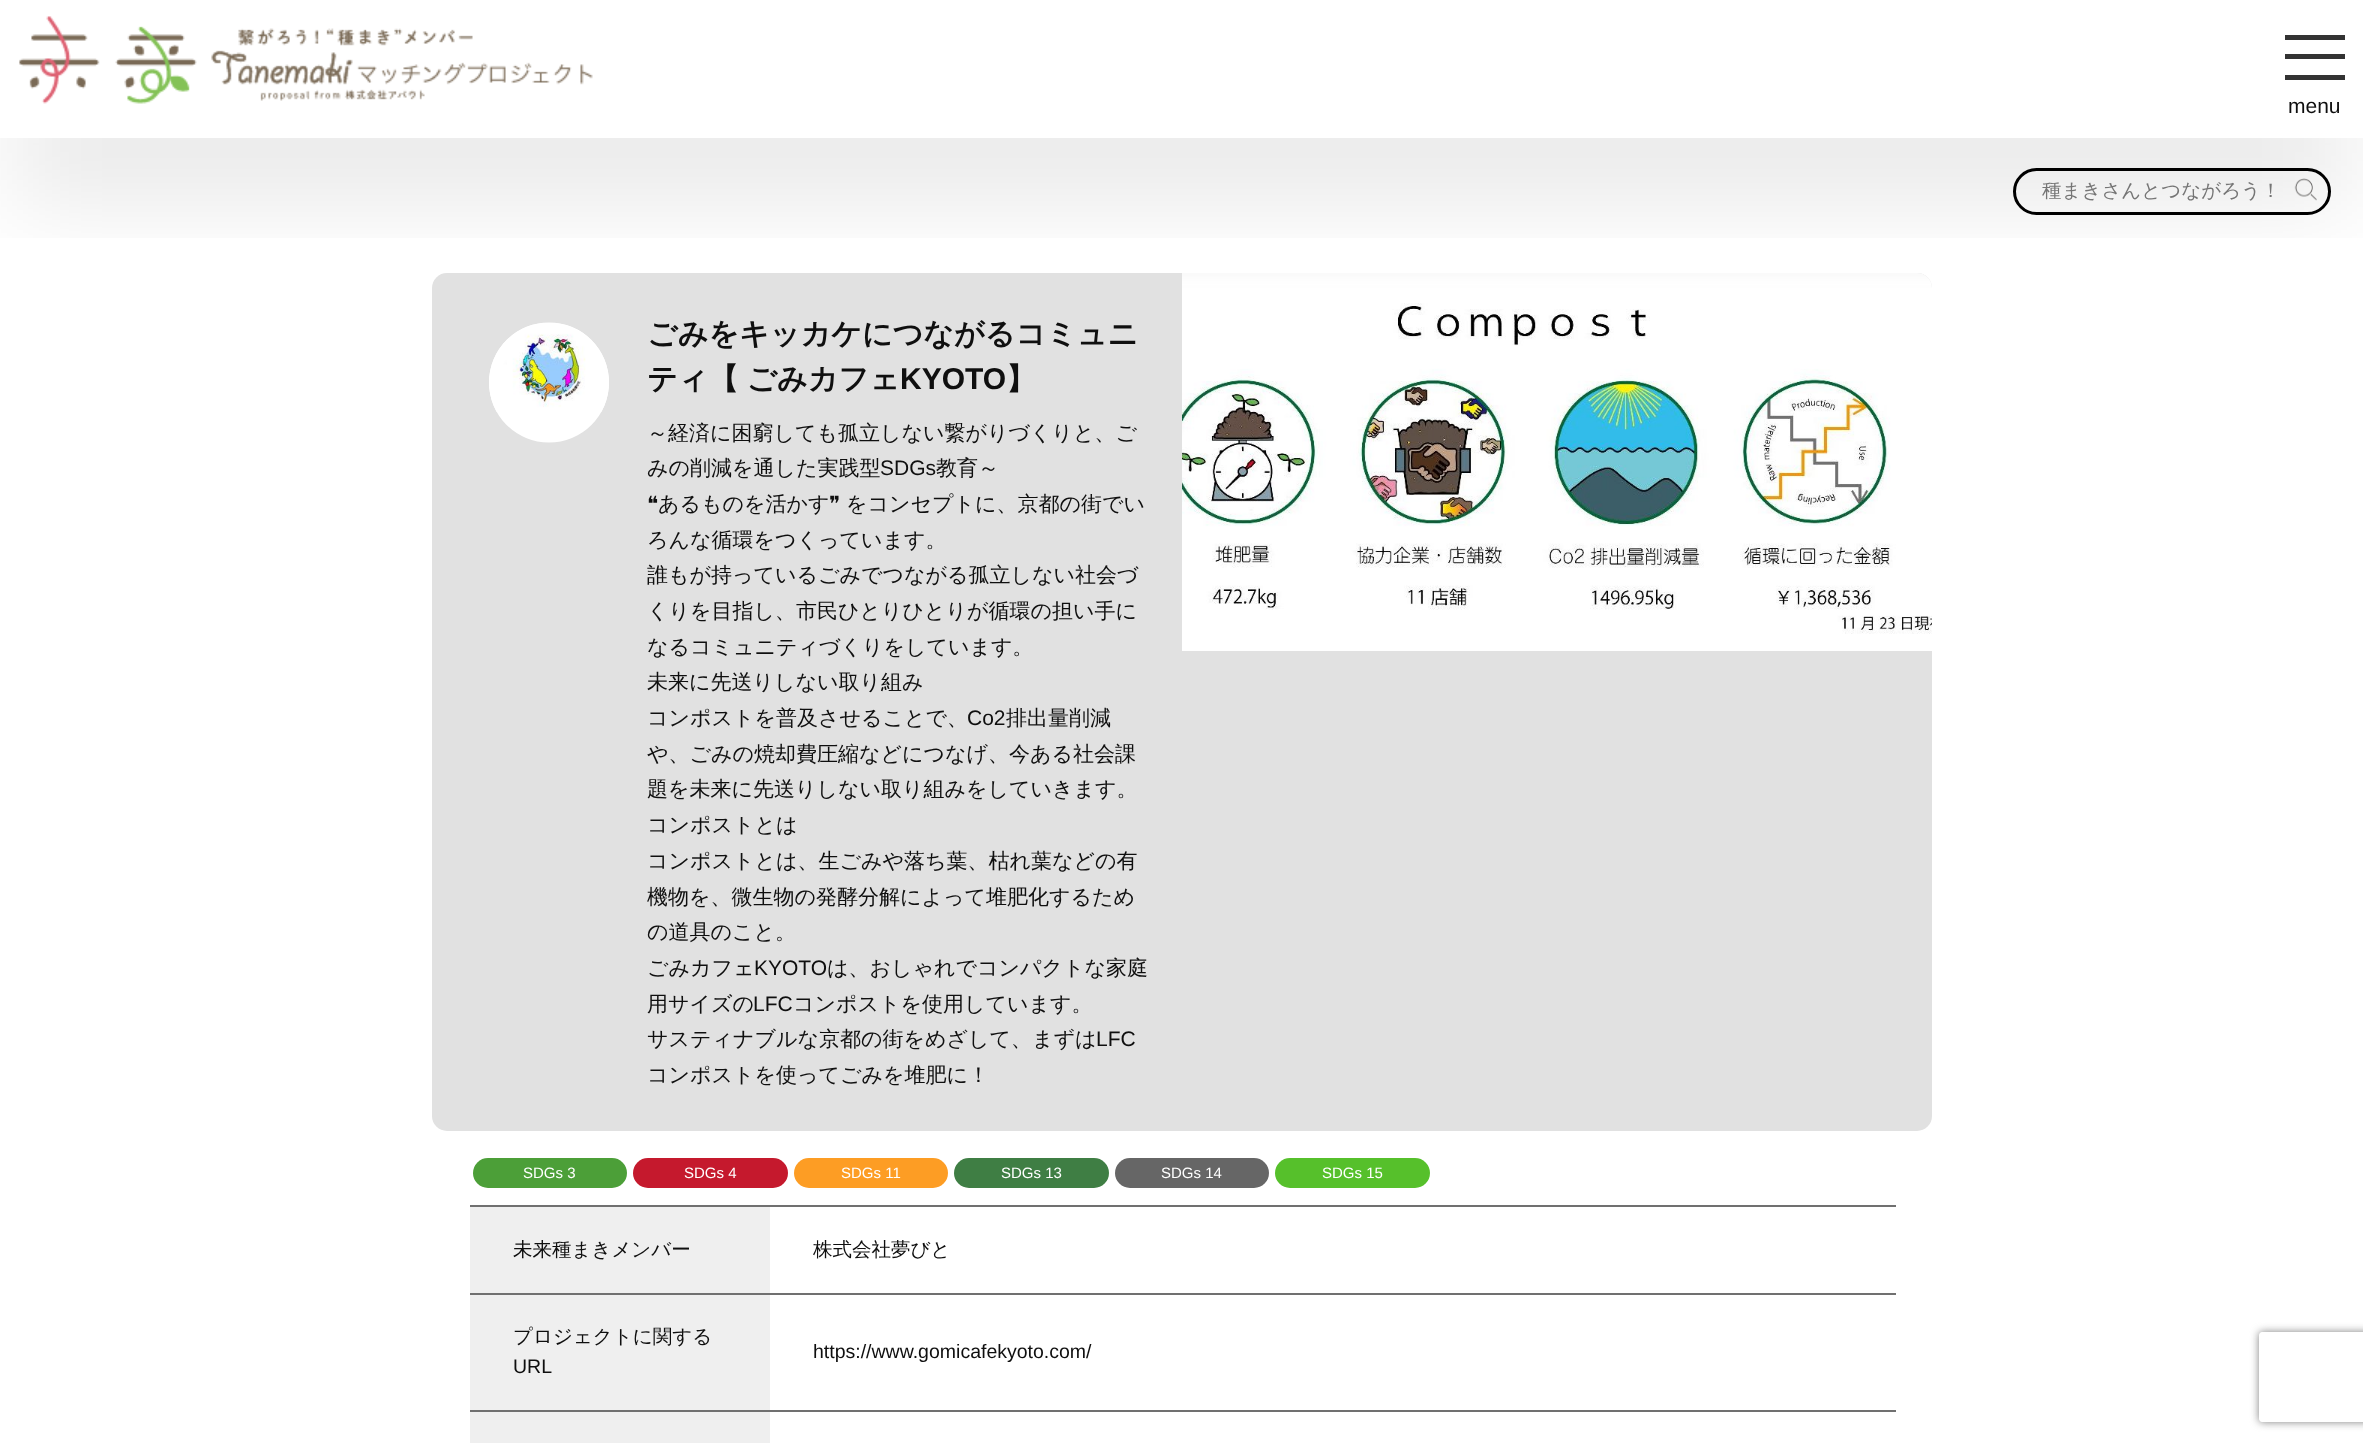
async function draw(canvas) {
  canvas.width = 2363;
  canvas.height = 1443;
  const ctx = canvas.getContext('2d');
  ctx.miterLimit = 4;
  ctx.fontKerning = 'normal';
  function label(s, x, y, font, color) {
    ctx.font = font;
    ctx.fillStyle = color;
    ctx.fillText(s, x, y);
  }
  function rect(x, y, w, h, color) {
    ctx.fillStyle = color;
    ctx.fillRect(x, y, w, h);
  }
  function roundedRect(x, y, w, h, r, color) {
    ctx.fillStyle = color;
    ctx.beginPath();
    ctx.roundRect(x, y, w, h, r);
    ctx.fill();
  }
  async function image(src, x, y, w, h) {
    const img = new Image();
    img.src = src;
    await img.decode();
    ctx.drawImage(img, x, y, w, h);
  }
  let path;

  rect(0, 0, 2363, 1443, '#fff');
  ctx.beginPath();
  ctx.roundRect(2014.5, 169.5, 315, 44, 22);
  ctx.strokeStyle = '#000';
  ctx.lineWidth = 3;
  ctx.stroke();
  await image('assets/img2.png', 2294, 178, 23, 23);
  roundedRect(432, 273, 1500, 858, 15, '#e1e1e1');
  await image('assets/img3.png', 489, 322, 120, 121);
  await image('assets/img4.png', 489, 323, 120, 89);
  await image('assets/img5.png', 1182, 273, 750, 378);
  ctx.save();
  ctx.beginPath();
  ctx.rect(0, 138, 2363, 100);
  ctx.clip();
  ctx.fillStyle = '#00000017';
  ctx.filter = 'blur(48px)';
  ctx.beginPath();
  ctx.rect(12, 87, 2340, 114);
  ctx.fill();
  ctx.filter = 'none';
  ctx.restore();
  await image('assets/img1.png', 19, 16, 574, 88);
  rect(2285, 35, 60, 5, '#333');
  rect(2285, 54, 60, 5, '#333');
  rect(2285, 75, 60, 5, '#333');
  label('menu', 2288, 113, '21px Liberation Sans', '#0f0f0f');
  label('種まきさんとつながろう！', 2042, 197, '500 19.5px WenQuanYi Zen Hei', '#757575');
  label('ごみをキッカケにつながるコミュニ', 647, 344, 'bold 30px WenQuanYi Zen Hei', '#0f0f0f');
  ctx.wordSpacing = '-1px';
  label('ティ【 ごみカフェ', 647, 389, 'bold 30px WenQuanYi Zen Hei', '#0f0f0f');
  ctx.wordSpacing = '0px';
  label('KYOTO', 900, 389, 'bold 30px Liberation Sans', '#0f0f0f');
  label('】', 1006, 389, 'bold 30px WenQuanYi Zen Hei', '#0f0f0f');
  label('～経済に困窮しても孤立しない繋がりづくりと、ご', 647, 440, '500 21px WenQuanYi Zen Hei', '#0f0f0f');
  label('みの削減を通した実践型', 647, 475, '500 21px WenQuanYi Zen Hei', '#0f0f0f');
  label('SDGs', 880, 475, '21px Liberation Sans', '#0f0f0f');
  label('教育～', 936, 475, '500 21px WenQuanYi Zen Hei', '#0f0f0f');
  label('❝', 647, 511, '21px DejaVu Sans', '#0f0f0f');
  label('あるものを活かす', 658, 511, '500 21px WenQuanYi Zen Hei', '#0f0f0f');
  label('❞', 829, 511, '21px DejaVu Sans', '#0f0f0f');
  label('をコンセプトに、京都の街でい', 846, 511, '500 21px WenQuanYi Zen Hei', '#0f0f0f');
  label('ろんな循環をつくっています。', 647, 547, '500 21px WenQuanYi Zen Hei', '#0f0f0f');
  label('誰もが持っているごみでつながる孤立しない社会づ', 647, 582, '500 21px WenQuanYi Zen Hei', '#0f0f0f');
  label('くりを目指し、市民ひとりひとりが循環の担い手に', 647, 618, '500 21px WenQuanYi Zen Hei', '#0f0f0f');
  label('なるコミュニティづくりをしています。', 647, 654, '500 21px WenQuanYi Zen Hei', '#0f0f0f');
  label('未来に先送りしない取り組み', 647, 689, '500 21px WenQuanYi Zen Hei', '#0f0f0f');
  label('コンポストを普及させることで、', 647, 725, '500 21px WenQuanYi Zen Hei', '#0f0f0f');
  label('Co2', 967, 725, '21px Liberation Sans', '#0f0f0f');
  label('排出量削減', 1006, 725, '500 21px WenQuanYi Zen Hei', '#0f0f0f');
  label('や、ごみの焼却費圧縮などにつなげ、今ある社会課', 647, 761, '500 21px WenQuanYi Zen Hei', '#0f0f0f');
  label('題を未来に先送りしない取り組みをしていきます。', 647, 796, '500 21px WenQuanYi Zen Hei', '#0f0f0f');
  label('コンポストとは', 647, 832, '500 21px WenQuanYi Zen Hei', '#0f0f0f');
  label('コンポストとは、生ごみや落ち葉、枯れ葉などの有', 647, 868, '500 21px WenQuanYi Zen Hei', '#0f0f0f');
  label('機物を、微生物の発酵分解によって堆肥化するため', 647, 904, '500 21px WenQuanYi Zen Hei', '#0f0f0f');
  label('の道具のこと。', 647, 939, '500 21px WenQuanYi Zen Hei', '#0f0f0f');
  label('ごみカフェ', 647, 975, '500 21px WenQuanYi Zen Hei', '#0f0f0f');
  label('KYOTO', 754, 975, '21px Liberation Sans', '#0f0f0f');
  label('は、おしゃれでコンパクトな家庭', 827, 975, '500 21px WenQuanYi Zen Hei', '#0f0f0f');
  label('用サイズの', 647, 1011, '500 21px WenQuanYi Zen Hei', '#0f0f0f');
  label('LFC', 753, 1011, '21px Liberation Sans', '#0f0f0f');
  label('コンポストを使用しています。', 793, 1011, '500 21px WenQuanYi Zen Hei', '#0f0f0f');
  label('サスティナブルな京都の街をめざして、まずは', 647, 1046, '500 21px WenQuanYi Zen Hei', '#0f0f0f');
  label('LFC', 1096, 1046, '21px Liberation Sans', '#0f0f0f');
  label('コンポストを使ってごみを堆肥に！', 647, 1082, '500 21px WenQuanYi Zen Hei', '#0f0f0f');
  roundedRect(473, 1158, 154, 30, 15, '#4c9f38');
  label('SDGs 3', 523, 1178, '15px Liberation Sans', '#fff');
  roundedRect(633, 1158, 155, 30, 15, '#c5192d');
  label('SDGs 4', 684, 1178, '15px Liberation Sans', '#fff');
  roundedRect(794, 1158, 154, 30, 15, '#fd9d24');
  label('SDGs 11', 841, 1178, '15px Liberation Sans', '#fff');
  roundedRect(954, 1158, 155, 30, 15, '#3f7e44');
  label('SDGs 13', 1001, 1178, '15px Liberation Sans', '#fff');
  roundedRect(1115, 1158, 154, 30, 15, '#666');
  label('SDGs 14', 1161, 1178, '15px Liberation Sans', '#fff');
  roundedRect(1275, 1158, 155, 30, 15, '#56c02b');
  label('SDGs 15', 1322, 1178, '15px Liberation Sans', '#fff');
  rect(470, 1207, 300, 86, '#efefef');
  label('未来種まきメンバー', 513, 1256, '500 19.5px WenQuanYi Zen Hei', '#0f0f0f');
  rect(470, 1205, 1426, 2, '#707070');
  label('株式会社夢びと', 813, 1256, '500 19.5px WenQuanYi Zen Hei', '#0f0f0f');
  rect(470, 1295, 300, 115, '#efefef');
  label('プロジェクトに関する', 513, 1343, '500 19.5px WenQuanYi Zen Hei', '#0f0f0f');
  label('URL', 513, 1373, '19.5px Liberation Sans', '#0f0f0f');
  rect(470, 1293, 1426, 2, '#707070');
  label('https://www.gomicafekyoto.com/', 813, 1358, '19.5px Liberation Sans', '#0f0f0f');
  rect(470, 1410, 1426, 2, '#707070');
  rect(470, 1412, 300, 31, '#efefef');
  ctx.save();
  path = new Path2D('M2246 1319H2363V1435H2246ZM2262 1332H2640C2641.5 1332 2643 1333.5 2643 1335V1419C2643 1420.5 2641.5 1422 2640 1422H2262C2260.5 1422 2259 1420.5 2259 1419V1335C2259 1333.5 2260.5 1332 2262 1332Z');
  ctx.clip(path, 'evenodd');
  ctx.fillStyle = '#808080';
  ctx.filter = 'blur(4px)';
  ctx.beginPath();
  ctx.roundRect(2259, 1332, 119, 90, 3);
  ctx.fill();
  ctx.filter = 'none';
  ctx.restore();
}

draw(document.querySelector('canvas'));
